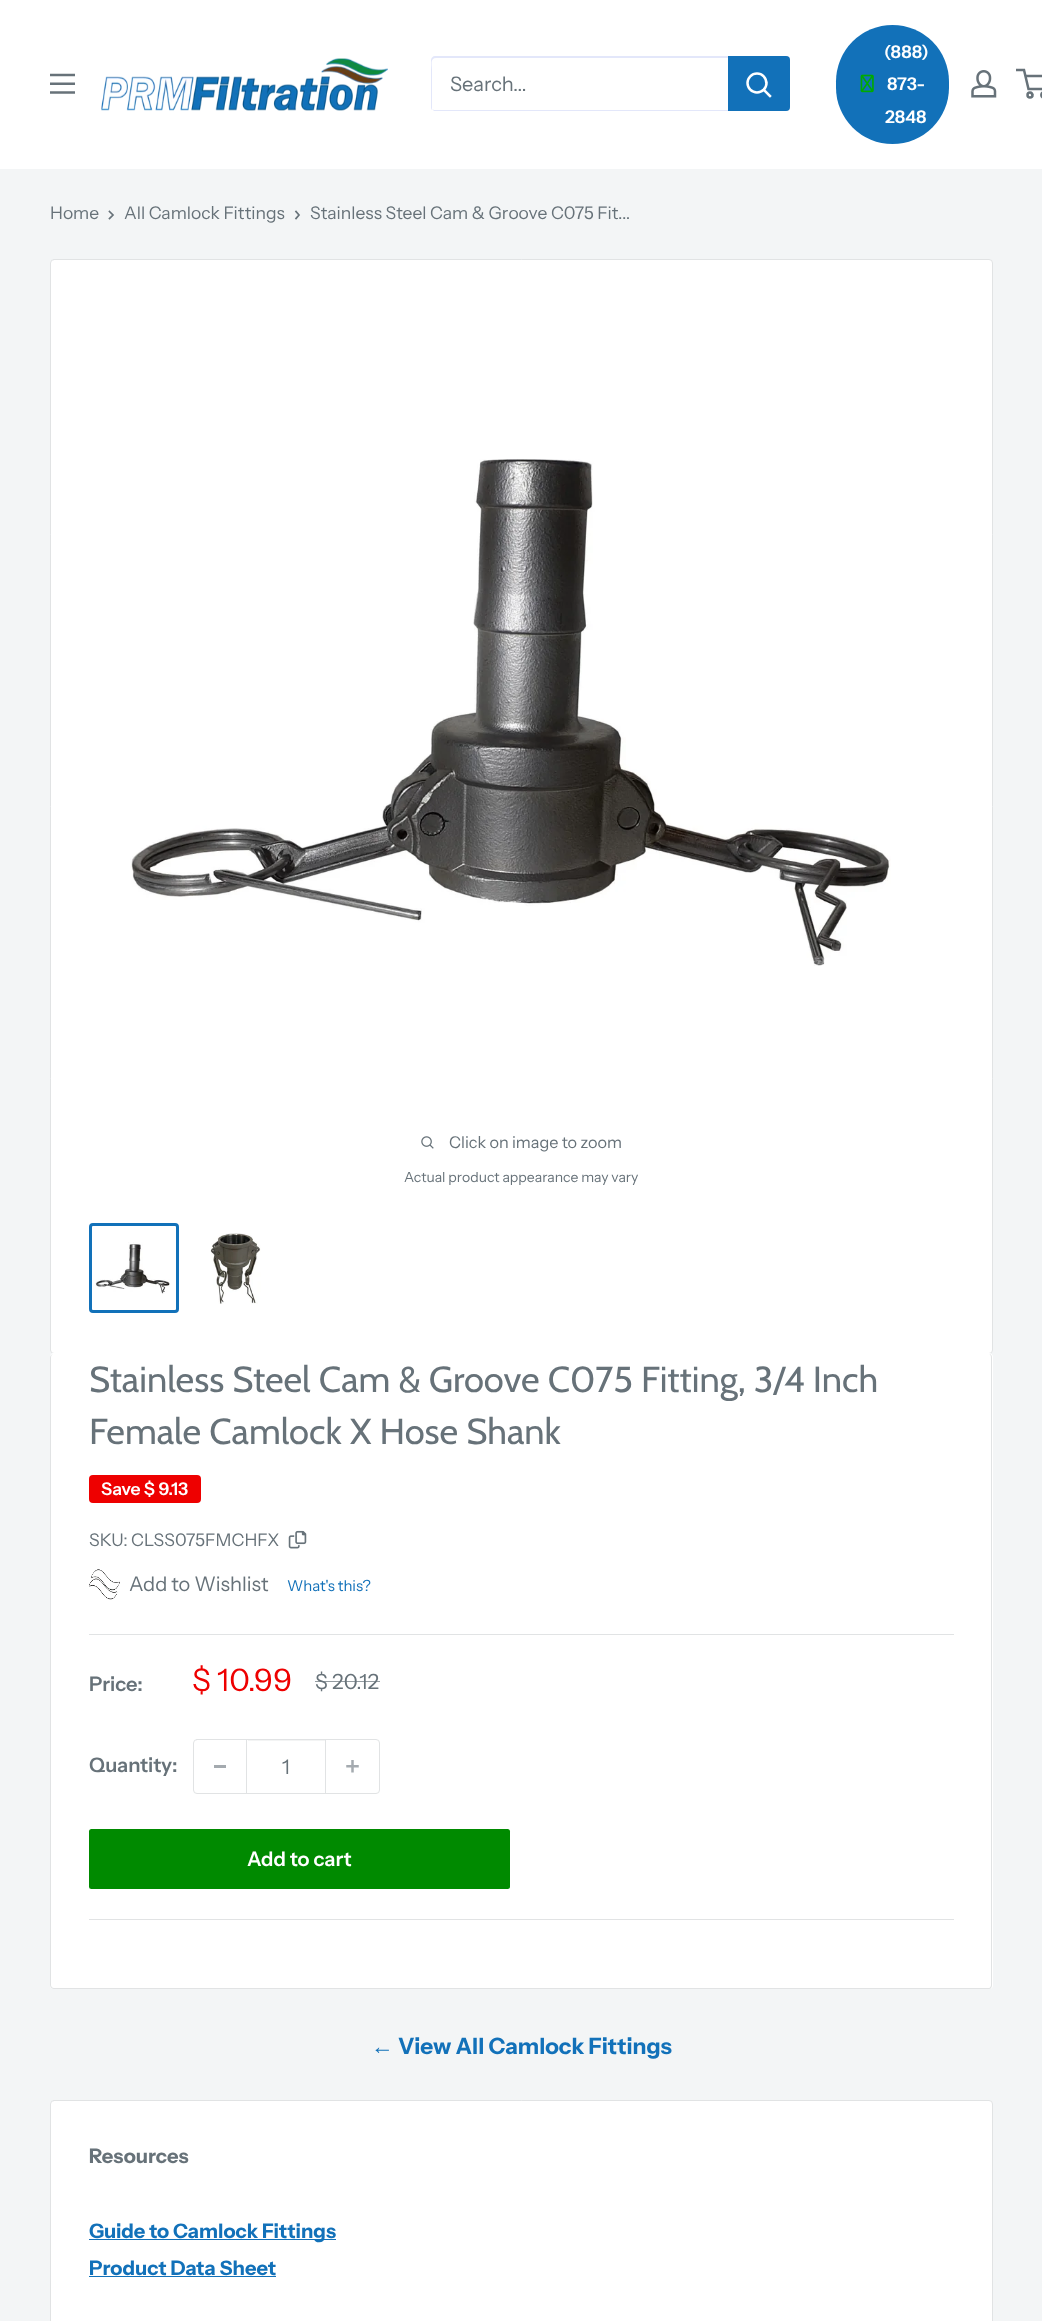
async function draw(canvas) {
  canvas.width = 1042;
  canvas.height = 2321;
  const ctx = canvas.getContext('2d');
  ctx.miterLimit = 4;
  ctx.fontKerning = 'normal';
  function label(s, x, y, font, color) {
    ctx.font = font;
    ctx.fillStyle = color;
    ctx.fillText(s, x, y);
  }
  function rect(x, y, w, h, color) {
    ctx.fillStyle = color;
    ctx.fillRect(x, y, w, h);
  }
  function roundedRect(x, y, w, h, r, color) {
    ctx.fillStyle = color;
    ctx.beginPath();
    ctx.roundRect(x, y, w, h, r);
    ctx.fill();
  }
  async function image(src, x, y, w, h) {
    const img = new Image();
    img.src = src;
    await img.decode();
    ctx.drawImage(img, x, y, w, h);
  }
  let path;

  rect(0, 0, 1042, 2321, '#f3f5f6');
  rect(0, 0, 1042, 169, '#fff');
  await image('assets/img1.png', 50, 73, 25, 21);
  await image('assets/img2.png', 101, 58, 287, 53);
  ctx.fillStyle = '#e3e7fa';
  path = new Path2D('M432 109L434 111H786C788 111 790 110 790 108V59L788 57L789 59V106C789 108 787 110 785 110H434Z');
  ctx.fill(path);
  ctx.fillStyle = '#a3afef4d';
  path = new Path2D('M436 58H790C789 57 788 56 786 56H435C433 56 431 58 431 60V107C431 108 431 109 432 110V69C432 65 430 58 436 58Z');
  ctx.fill(path);
  label('Search...', 450, 91, '20px Instrument Sans', '#677279');
  ctx.fillStyle = '#1271b9';
  ctx.beginPath();
  ctx.roundRect(728, 56, 62, 55, [0, 4, 4, 0]);
  ctx.fill();
  path = new Path2D('M770 96L764 90');
  ctx.strokeStyle = '#fff';
  ctx.lineWidth = 2.5;
  ctx.lineCap = 'square';
  ctx.stroke(path);
  ctx.beginPath();
  ctx.arc(757, 83, 9.5, 0, 2 * Math.PI);
  ctx.stroke();
  roundedRect(836, 25, 113, 119, 56.5, '#1271b9');
  await image('assets/img3.png', 860, 74, 14, 19);
  label('(888)', 884, 58, '600 17.5px Instrument Sans', '#fff');
  label('873-', 887, 90, '600 17.5px Instrument Sans', '#fff');
  label('2848', 885, 123, '600 17.5px Instrument Sans', '#fff');
  await image('assets/img4.png', 971, 70, 26, 28);
  ctx.beginPath();
  ctx.arc(1030, 95, 2.5, 0, 2 * Math.PI);
  ctx.strokeStyle = '#677279';
  ctx.stroke();
  ctx.beginPath();
  ctx.arc(1043.8, 95, 2.5, 0, 2 * Math.PI);
  ctx.stroke();
  path = new Path2D('M1025.5 76H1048L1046.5 89H1028.5L1024 70H1016');
  ctx.lineCap = 'butt';
  ctx.stroke(path);
  label('Home', 50, 219, '17.5px Instrument Sans', '#677279');
  path = new Path2D('M109.5 211.5L113 215L109.5 218.5');
  ctx.lineWidth = 1.7;
  ctx.lineCap = 'square';
  ctx.stroke(path);
  label('All Camlock Fittings', 124, 219, '17.5px Instrument Sans', '#677279');
  path = new Path2D('M296 211.5L299 215L296 218.5');
  ctx.stroke(path);
  label('Stainless Steel Cam & Groove C075 Fit...', 310, 219, '17.5px Instrument Sans', '#677279');
  ctx.fillStyle = '#fff';
  ctx.beginPath();
  ctx.roundRect(50.5, 259.5, 942, 1094, 3.5);
  ctx.fill();
  ctx.strokeStyle = '#e1e3e4';
  ctx.lineWidth = 1;
  ctx.stroke();
  await image('assets/img5.png', 130, 459, 761, 507);
  await image('assets/img6.png', 421, 1136, 13, 13);
  label('Click on image to zoom', 449, 1148, '16.25px Instrument Sans', '#677279');
  label('Actual product appearance may vary', 404, 1182, '14px Instrument Sans', '#677279');
  ctx.beginPath();
  ctx.roundRect(90.5, 1224.5, 87, 87, 2.5);
  ctx.strokeStyle = '#1271b9';
  ctx.lineWidth = 3;
  ctx.stroke();
  await image('assets/img7.png', 95, 1242, 75, 52);
  await image('assets/img8.png', 210, 1233, 51, 71);
  ctx.fillStyle = '#fff';
  path = new Path2D('M54 1353C51 1353 50 1355 50 1358C50 1355 52 1354 54 1354H989C991 1354 992 1355 992 1358V1986L993 1984V1357C993 1355 991 1353 989 1353Z');
  ctx.fill(path);
  roundedRect(50, 1354, 943, 635, 4, '#fff');
  ctx.fillStyle = '#e1e3e4';
  path = new Path2D('M54 1354H989C991 1354 992 1355 992 1358V1985C992 1987 991 1989 989 1989H54C52 1989 50 1987 50 1985V1358C50 1355 52 1354 54 1354ZM54 1354H989C990 1354 991 1355 991 1358V1985C991 1986 990 1988 989 1988H54C52 1988 51 1986 51 1985V1358C51 1355 52 1354 54 1354Z');
  ctx.fill(path, 'evenodd');
  label('Stainless Steel Cam & Groove C075 Fitting, 3/4 Inch', 89, 1392, '36.25px Cabin', '#677279');
  label('Female Camlock X Hose Shank', 89, 1444, '36.25px Cabin', '#677279');
  roundedRect(89, 1475, 112, 28, 4, '#e00');
  label('Save $ 9.13', 101, 1495, '600 17.5px Instrument Sans', '#fff');
  label('SKU: CLSS075FMCHFX', 89, 1546, '17.5px Instrument Sans', '#677279');
  await image('assets/img9.png', 288, 1530, 19, 19);
  await image('assets/img10.png', 89, 1569, 31, 31);
  label('Add to Wishlist', 129, 1591, '20px Instrument Sans', '#677279');
  label('What\'s this?', 287, 1591, '15px Instrument Sans', '#1271b9');
  rect(89, 1634, 865, 1, '#e1e3e4');
  label('Price:', 89, 1691, '600 20px Instrument Sans', '#677279');
  label('$ 10.99', 192, 1691, '31px Instrument Sans', '#e00');
  label('$ 20.12', 315, 1689, '21px Instrument Sans', '#677279');
  rect(315, 1681, 65, 1, '#677279b3');
  label('Quantity:', 89, 1772, '600 20px Instrument Sans', '#677279');
  ctx.beginPath();
  ctx.roundRect(193.5, 1739.5, 186, 54, 3.5);
  ctx.strokeStyle = '#e1e3e4';
  ctx.lineWidth = 1;
  ctx.stroke();
  rect(214, 1765, 12, 3, '#a4aaaf');
  rect(248, 1740, 77, 1, '#f3f4f4');
  rect(325, 1740, 1, 53, '#e1e3e4');
  rect(246, 1740, 1, 53, '#e1e3e4');
  label('1', 282, 1774, '20px Instrument Sans', '#677279');
  await image('assets/img11.png', 346, 1760, 13, 13);
  roundedRect(89, 1829, 421, 60, 2.5, '#008a00');
  label('Add to cart', 247, 1866, '600 20px Instrument Sans', '#fff');
  rect(89, 1919, 865, 1, '#e1e3e4');
  label('←', 371, 2054, 'bold 22.5px Liberation Sans', '#1271b9');
  label('View All Camlock Fittings', 398, 2054, 'bold 22.5px Instrument Sans', '#1271b9');
  ctx.fillStyle = '#fff';
  ctx.beginPath();
  ctx.roundRect(50.5, 2100.5, 942, 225, 3.5);
  ctx.fill();
  ctx.stroke();
  label('Resources', 89, 2163, 'bold 20px Instrument Sans', '#677279');
  rect(89, 2239, 247, 1, '#1271b9');
  label('Guide to Camlock Fittings', 89, 2238, 'bold 20px Instrument Sans', '#1271b9');
  label('Product Data Sheet', 89, 2275, 'bold 20px Instrument Sans', '#1271b9');
  rect(89, 2276, 187, 1, '#1271b9');
}

draw(document.querySelector('canvas'));
